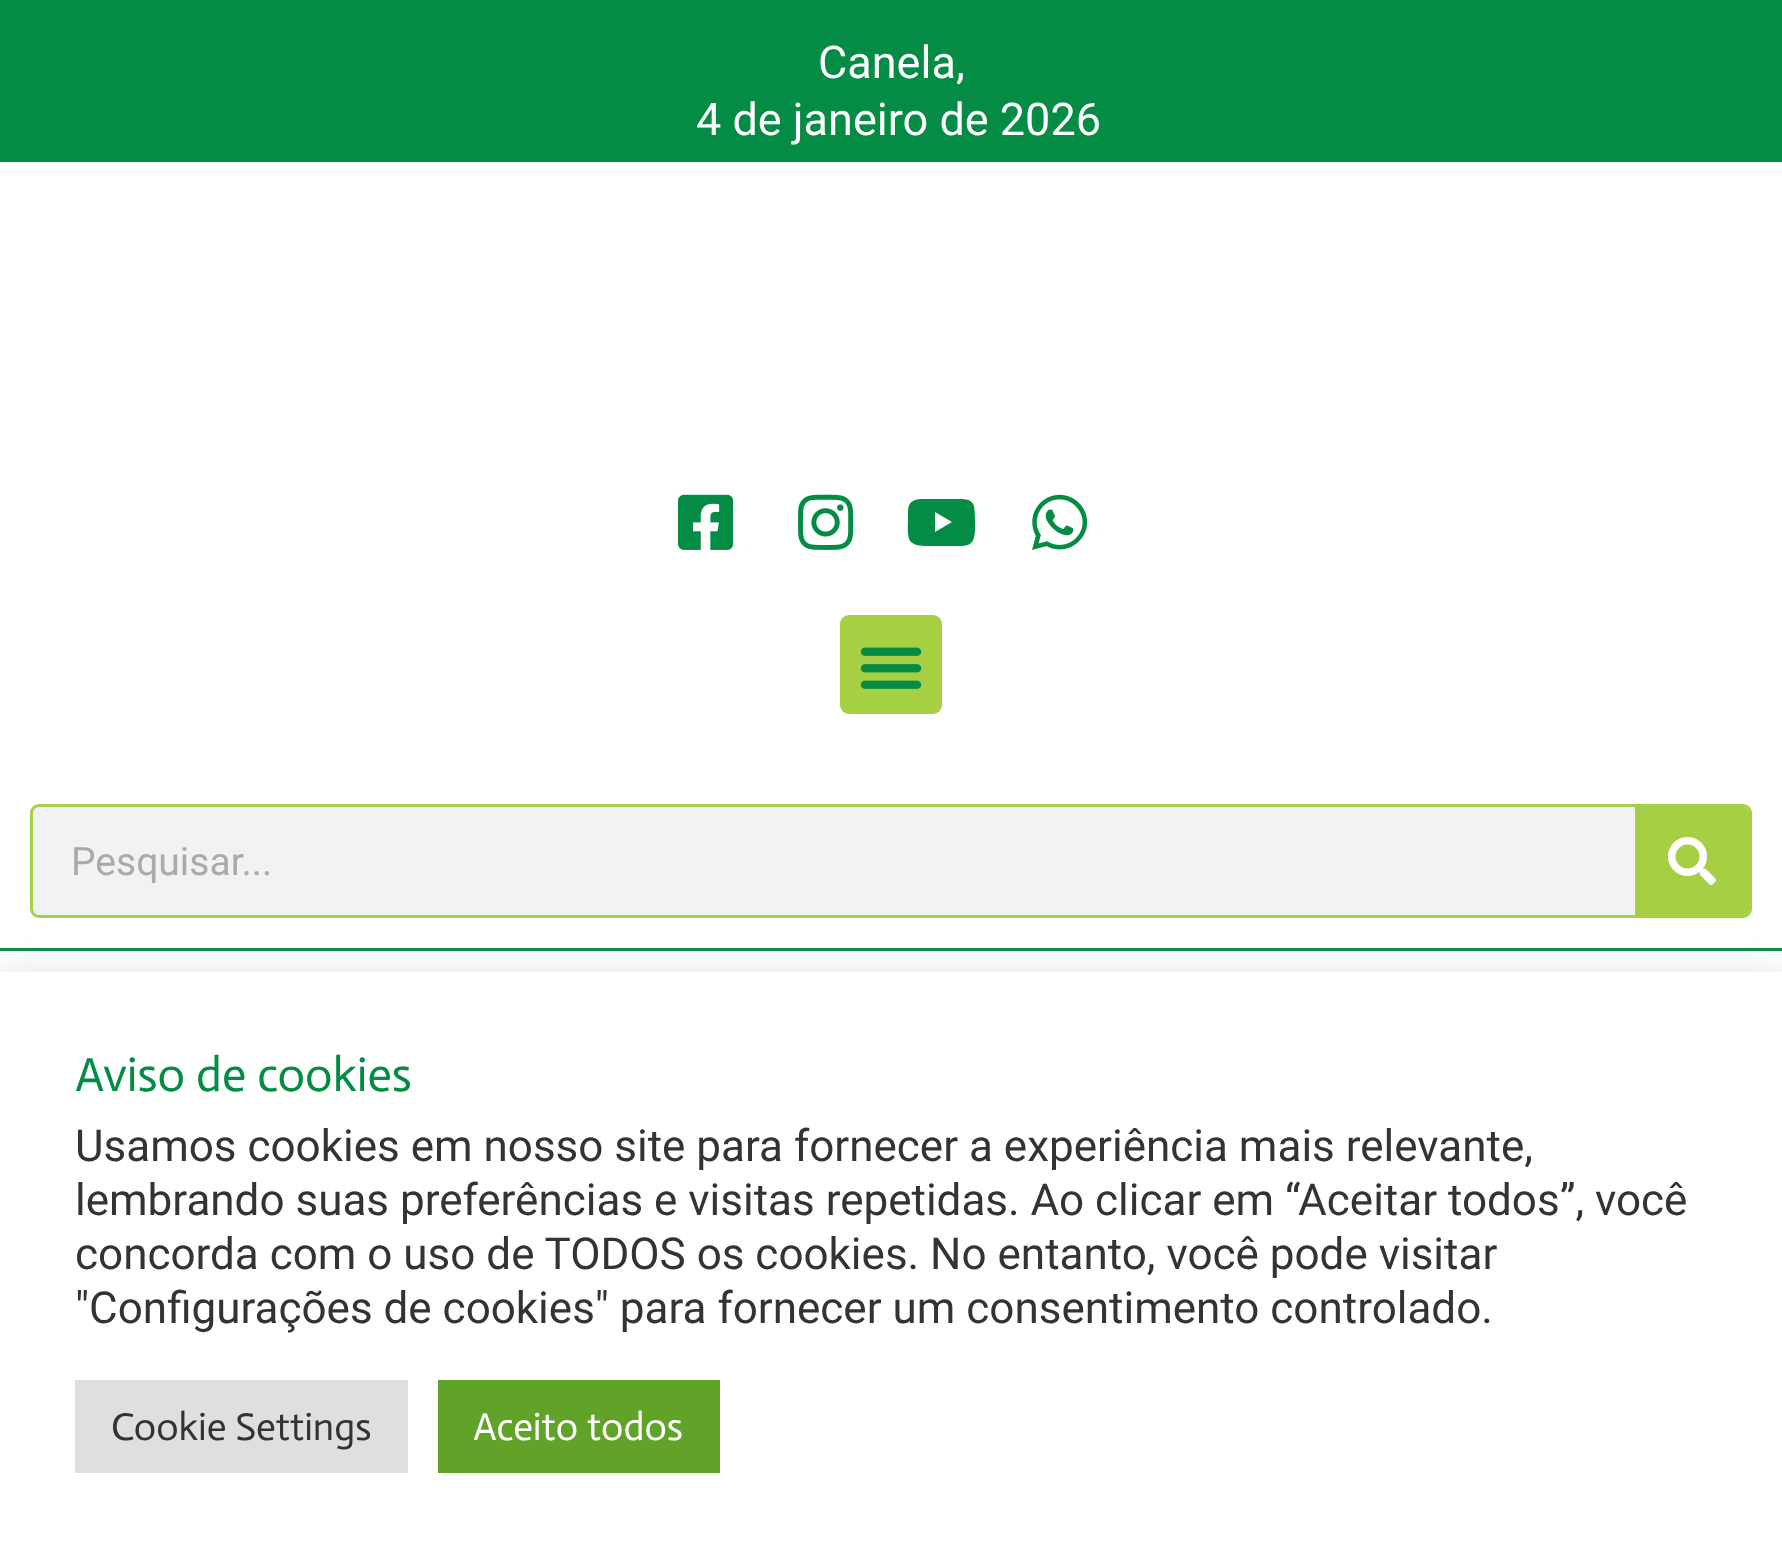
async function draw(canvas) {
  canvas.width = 1782;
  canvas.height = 1561;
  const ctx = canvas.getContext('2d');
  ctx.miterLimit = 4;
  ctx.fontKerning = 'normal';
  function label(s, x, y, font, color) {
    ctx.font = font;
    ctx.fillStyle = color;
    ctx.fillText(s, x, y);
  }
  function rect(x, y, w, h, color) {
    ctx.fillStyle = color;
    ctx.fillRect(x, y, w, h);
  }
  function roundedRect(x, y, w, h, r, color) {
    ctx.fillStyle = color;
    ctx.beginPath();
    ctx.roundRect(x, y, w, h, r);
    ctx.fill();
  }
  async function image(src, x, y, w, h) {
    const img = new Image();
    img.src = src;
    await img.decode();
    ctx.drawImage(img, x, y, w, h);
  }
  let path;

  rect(0, 0, 1782, 1561, '#fff');
  rect(0, 0, 1782, 162, '#048c44');
  label('Canela,', 818, 78, '45px Roboto', '#fff');
  label('4 de janeiro de 2026', 696, 135, '45px Roboto', '#fff');
  await image('assets/img1.png', 678, 494, 56, 56);
  await image('assets/img2.png', 798, 494, 56, 56);
  ctx.fillStyle = '#048c44';
  path = new Path2D('M974 506C975 513 975 520 975 527C975 548 968 546 949 546H932C926 546 912 547 909 539C907 532 908 525 908 518C908 506 908 500 921 499H936H955C962 499 972 498 974 506ZM935 532L952 522L935 512Z');
  ctx.fill(path);
  await image('assets/img3.png', 1032, 494, 56, 56);
  roundedRect(840, 615, 102, 99, 9, '#a7cf44');
  await image('assets/img4.png', 860, 647, 62, 42);
  rect(0, 948, 1782, 3, '#048c44');
  ctx.fillStyle = '#f1f2f3';
  ctx.beginPath();
  ctx.roundRect(31.5, 805.5, 1719, 111, 7.5);
  ctx.fill();
  ctx.strokeStyle = '#a7cf44';
  ctx.lineWidth = 3;
  ctx.stroke();
  label('Pesquisar...', 71, 875, '39px Roboto', '#aaa');
  ctx.fillStyle = '#a7cf44';
  ctx.beginPath();
  ctx.roundRect(1635, 807, 114, 108, [0, 6, 6, 0]);
  ctx.fill();
  await image('assets/img5.png', 1668, 837, 48, 48);
  ctx.fillStyle = '#acabab4d';
  ctx.filter = 'blur(15px)';
  ctx.beginPath();
  ctx.rect(0, 969, 1782, 591);
  ctx.fill();
  ctx.filter = 'none';
  rect(0, 972, 1782, 589, '#fff');
  label('Aviso de cookies', 75, 1091, '48px Actor', '#048c44');
  label('Usamos cookies em nosso site para fornecer a experiência mais relevante,', 75, 1161, '44px Roboto', '#333');
  label('lembrando suas preferências e visitas repetidas. Ao clicar em “Aceitar todos”, você', 75, 1215, '44px Roboto', '#333');
  label('concorda com o uso de TODOS os cookies. No entanto, você pode visitar', 75, 1269, '44px Roboto', '#333');
  label('"Configurações de cookies" para fornecer um consentimento controlado.', 75, 1323, '44px Roboto', '#333');
  rect(75, 1380, 333, 93, '#dedfe0');
  label('Cookie Settings', 111, 1440, '39px Actor', '#333');
  rect(438, 1380, 282, 93, '#61a229');
  label('Aceito todos', 473, 1440, '39px Actor', '#fff');
}

draw(document.querySelector('canvas'));
